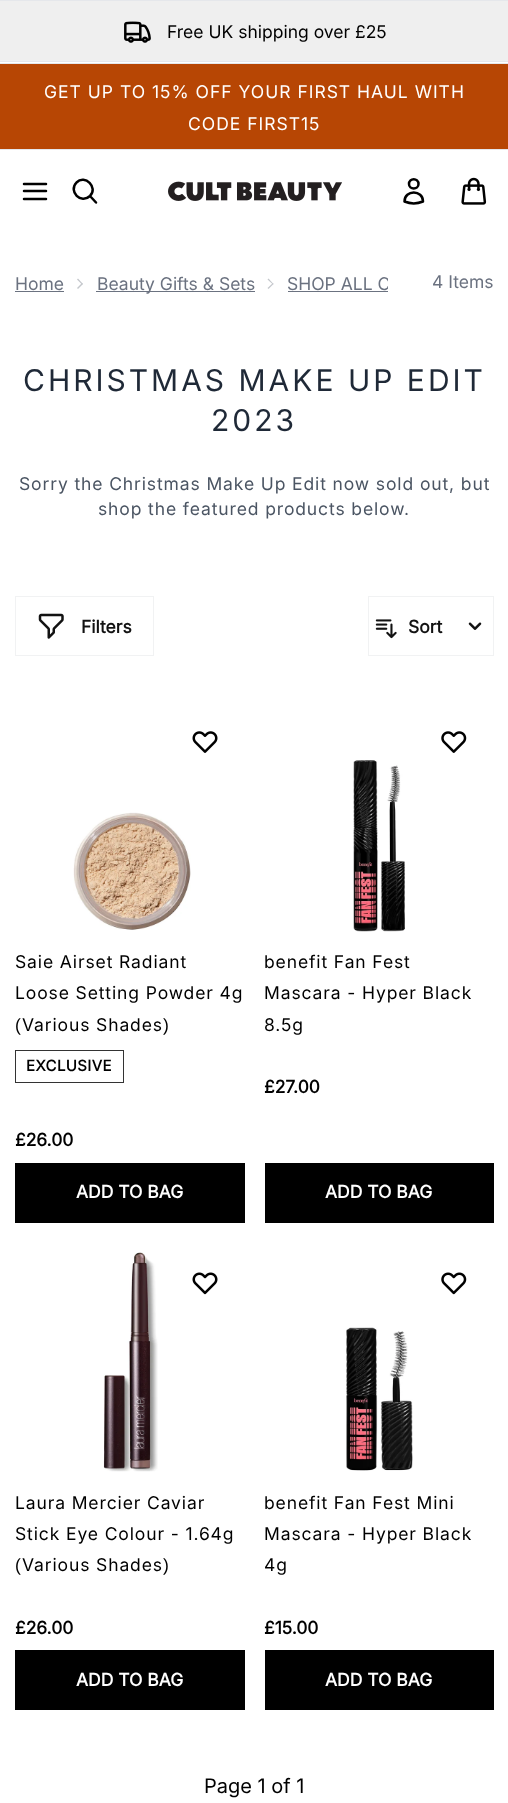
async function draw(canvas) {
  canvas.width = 508;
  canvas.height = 1803;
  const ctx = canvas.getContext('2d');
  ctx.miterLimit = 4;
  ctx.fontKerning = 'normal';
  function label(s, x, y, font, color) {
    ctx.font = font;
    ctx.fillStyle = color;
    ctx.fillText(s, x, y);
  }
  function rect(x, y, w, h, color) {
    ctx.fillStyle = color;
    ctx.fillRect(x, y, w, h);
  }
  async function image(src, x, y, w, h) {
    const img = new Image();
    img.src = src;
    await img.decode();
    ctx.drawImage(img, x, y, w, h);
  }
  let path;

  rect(0, 0, 508, 1803, '#fff');
  rect(0, 1, 508, 60, '#efefef');
  rect(0, 0, 508, 1, '#e5e7eb');
  rect(0, 61, 508, 1, '#e5e7eb');
  await image('assets/img1.png', 124, 21, 27, 22);
  label('Free UK shipping over £25', 167, 38, '17.5px Inter', '#000');
  rect(0, 64, 508, 85, '#b74604');
  rect(0, 63, 508, 1, '#e5e7eb');
  rect(0, 149, 508, 1, '#e5e7eb');
  ctx.letterSpacing = '1px';
  label('GET UP TO 15% OFF YOUR FIRST HAUL WITH', 44, 98, '17.5px Inter', '#fff');
  label('CODE FIRST15', 188, 130, '17.5px Inter', '#fff');
  path = new Path2D('M24 191H46M24 184H46M24 199H46');
  ctx.strokeStyle = '#000';
  ctx.lineWidth = 2.5;
  ctx.lineCap = 'round';
  ctx.lineJoin = 'round';
  ctx.stroke(path);
  path = new Path2D('M96 202.5L90 196M90 196C98.5 187.5 85 174 76.5 182.5C68 191.5 81 204.5 90 196Z');
  ctx.stroke(path);
  await image('assets/img2.png', 168, 181, 174, 20);
  path = new Path2D('M418.5 184C418.5 190 409 190 409 184C409 177.5 418.5 177.5 418.5 184ZM404.5 201.5C404.5 189.5 423 189.5 423 201.5C417 204 410.5 204 404.5 201.5Z');
  ctx.stroke(path);
  await image('assets/img3.png', 461, 177, 26, 28);
  ctx.letterSpacing = '0px';
  label('Home', 15, 290, '17.5px Inter', '#6b7280');
  rect(15, 291, 49, 1, '#6b7280');
  ctx.fillStyle = '#c4c7cc';
  path = new Path2D('M78 278.5L83 284L82 284.5L77 279.5Z');
  ctx.fill(path);
  path = new Path2D('M82 283L83 284L78 289L77 288Z');
  ctx.fill(path);
  rect(96, 291, 159, 1, '#6b7280');
  label('Beauty Gifts & Sets', 97, 290, '17.5px Inter', '#6b7280');
  ctx.fillStyle = '#c4c7cc';
  path = new Path2D('M268.5 278.5L273.5 284L273 284.5L267.5 279.5Z');
  ctx.fill(path);
  path = new Path2D('M273 283L273.5 284L268.5 289L267.5 288Z');
  ctx.fill(path);
  ctx.save();
  ctx.beginPath();
  ctx.rect(15, 256, 373, 55);
  ctx.clip();
  label('SHOP ALL C', 287, 290, '17.5px Inter', '#6b7280');
  ctx.restore();
  rect(288, 291, 100, 1, '#6b7280');
  label('4 Items', 432, 288, '17.5px Inter', '#6b7280');
  ctx.letterSpacing = '3px';
  label('CHRISTMAS MAKE UP EDIT', 23, 391, '30px Inter', '#1f2937');
  label('2023', 211, 431, '30px Inter', '#1f2937');
  ctx.letterSpacing = '0.88px';
  label('Sorry the Christmas Make Up Edit now sold out, but', 19, 490, '17.5px Inter', '#4b5563');
  label('shop the featured products below.', 98, 515, '17.5px Inter', '#4b5563');
  ctx.strokeStyle = '#f1f2f3';
  ctx.lineWidth = 1;
  ctx.lineJoin = 'miter';
  ctx.strokeRect(15.5, 596.5, 138, 59);
  await image('assets/img4.png', 38, 613, 26, 26);
  ctx.letterSpacing = '0px';
  label('Filters', 81, 633, 'bold 17.5px Inter', '#121212');
  ctx.strokeRect(368.5, 596.5, 125, 59);
  await image('assets/img5.png', 375, 619, 22, 20);
  label('Sort', 408, 633, 'bold 17.5px Inter', '#121212');
  await image('assets/img6.png', 468, 622, 14, 8);
  await image('assets/img7.png', 192, 731, 26, 22);
  await image('assets/img8.png', 73, 812, 118, 118);
  ctx.letterSpacing = '0.88px';
  label('Saie Airset Radiant', 15, 968, '17.5px Inter', '#000');
  label('Loose Setting Powder 4g', 15, 999, '17.5px Inter', '#000');
  label('(', 15, 1031, '17.5px Liberation Sans', '#000');
  label('Various Shades', 22, 1031, '17.5px Inter', '#000');
  label(')', 163, 1031, '17.5px Liberation Sans', '#000');
  ctx.strokeStyle = '#333';
  ctx.strokeRect(15.5, 1050.5, 108, 32);
  ctx.letterSpacing = '0.4px';
  label('EXCLUSIVE', 26, 1071, 'bold 15px Inter', '#000');
  ctx.letterSpacing = '0px';
  label('£26.00', 15, 1146, 'bold 17.5px Inter', '#000');
  rect(15, 1163, 230, 60, '#000');
  label('ADD TO BAG', 76, 1198, 'bold 17.5px Inter', '#fff');
  await image('assets/img9.png', 441, 731, 26, 22);
  await image('assets/img10.png', 353, 760, 52, 172);
  ctx.letterSpacing = '0.88px';
  label('benefit Fan Fest', 264, 968, '17.5px Inter', '#000');
  label('Mascara - Hyper Black', 264, 999, '17.5px Inter', '#000');
  label('8.5g', 264, 1031, '17.5px Inter', '#000');
  ctx.letterSpacing = '0px';
  label('£27.00', 264, 1093, 'bold 17.5px Inter', '#000');
  rect(265, 1163, 229, 60, '#000');
  label('ADD TO BAG', 325, 1198, 'bold 17.5px Inter', '#fff');
  await image('assets/img11.png', 103, 1252, 55, 220);
  await image('assets/img12.png', 192, 1272, 26, 23);
  ctx.letterSpacing = '0.88px';
  label('Laura Mercier Caviar', 15, 1509, '17.5px Inter', '#000');
  label('Stick Eye Colour - 1.64g', 15, 1540, '17.5px Inter', '#000');
  label('(', 15, 1571, '17.5px Liberation Sans', '#000');
  label('Various Shades', 22, 1571, '17.5px Inter', '#000');
  label(')', 163, 1571, '17.5px Liberation Sans', '#000');
  ctx.letterSpacing = '0px';
  label('£26.00', 15, 1634, 'bold 17.5px Inter', '#000');
  rect(15, 1650, 230, 60, '#000');
  label('ADD TO BAG', 76, 1686, 'bold 17.5px Inter', '#fff');
  await image('assets/img13.png', 441, 1272, 26, 23);
  await image('assets/img14.png', 346, 1327, 67, 144);
  ctx.letterSpacing = '0.88px';
  label('benefit Fan Fest Mini', 264, 1509, '17.5px Inter', '#000');
  label('Mascara - Hyper Black', 264, 1540, '17.5px Inter', '#000');
  label('4g', 264, 1571, '17.5px Inter', '#000');
  ctx.letterSpacing = '0px';
  label('£15.00', 264, 1634, 'bold 17.5px Inter', '#000');
  rect(265, 1650, 229, 60, '#000');
  label('ADD TO BAG', 325, 1686, 'bold 17.5px Inter', '#fff');
  label('Page 1 of 1', 204, 1793, '20px Inter', '#000');
}

draw(document.querySelector('canvas'));
